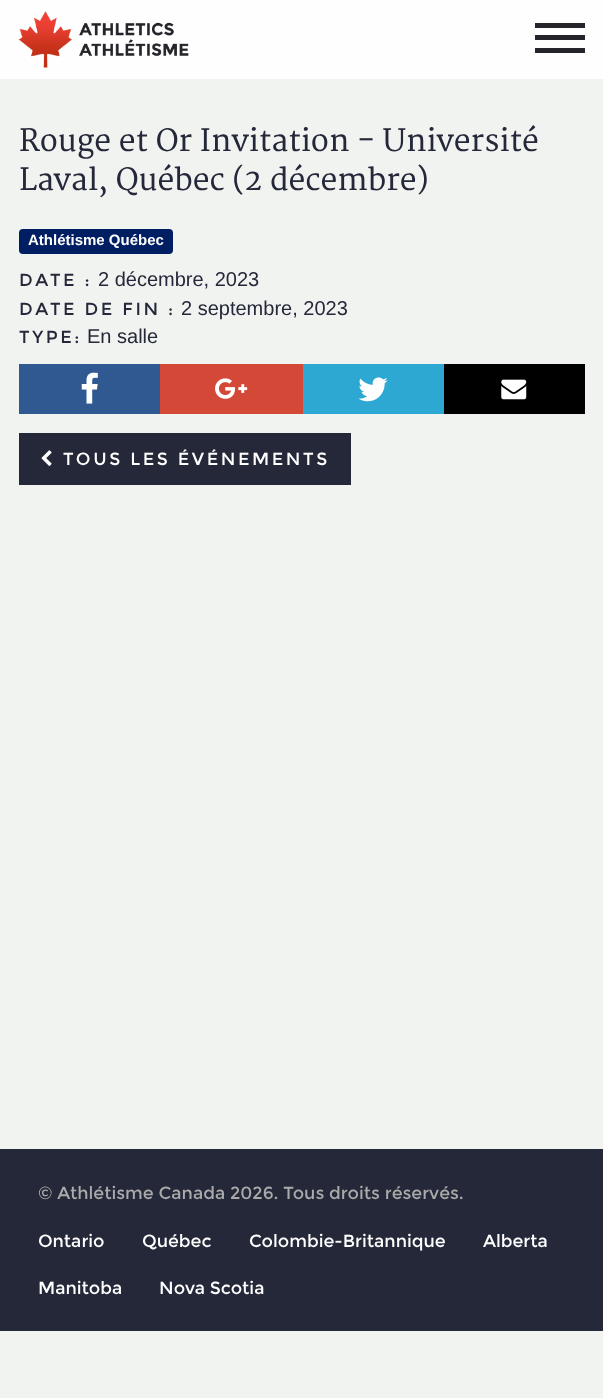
async function draw(canvas) {
  canvas.width = 603;
  canvas.height = 1398;
  const ctx = canvas.getContext('2d');
  ctx.miterLimit = 4;
  ctx.fontKerning = 'normal';
  function label(s, x, y, font, color) {
    ctx.font = font;
    ctx.fillStyle = color;
    ctx.fillText(s, x, y);
  }
  function rect(x, y, w, h, color) {
    ctx.fillStyle = color;
    ctx.fillRect(x, y, w, h);
  }
  function roundedRect(x, y, w, h, r, color) {
    ctx.fillStyle = color;
    ctx.beginPath();
    ctx.roundRect(x, y, w, h, r);
    ctx.fill();
  }
  async function image(src, x, y, w, h) {
    const img = new Image();
    img.src = src;
    await img.decode();
    ctx.drawImage(img, x, y, w, h);
  }

  rect(0, 0, 603, 1398, '#f1f3f1');
  rect(0, 0, 603, 79, '#fefefe');
  await image('assets/img1.png', 18, 11, 171, 57);
  rect(535, 35, 50, 5, '#24242a');
  rect(535, 23, 50, 5, '#24242a');
  rect(535, 48, 50, 5, '#24242a');
  label('Rouge et Or Invitation - Université', 19, 151, '30px Merriweather', '#242838');
  label('Laval, Québec (2 décembre)', 19, 190, '30px Merriweather', '#242838');
  roundedRect(19, 229, 154, 25, 4, '#001e62');
  label('Athlétisme Québec', 28, 245, 'bold 15px Liberation Sans', '#fff');
  ctx.letterSpacing = '2.6px';
  label('DATE :', 19, 286, '17.5px Montserrat', '#242838');
  ctx.letterSpacing = '0px';
  label('2 décembre, 2023', 98, 286, '20px Liberation Sans', '#242838');
  ctx.letterSpacing = '2.6px';
  label('DATE DE FIN :', 19, 315, '17.5px Montserrat', '#242838');
  ctx.letterSpacing = '0px';
  label('2 septembre, 2023', 181, 315, '20px Liberation Sans', '#242838');
  ctx.letterSpacing = '2.6px';
  label('TYPE:', 19, 343, '17.5px Montserrat', '#242838');
  ctx.letterSpacing = '0px';
  label('En salle', 87, 343, '20px Liberation Sans', '#242838');
  rect(19, 364, 141, 50, '#305891');
  await image('assets/img2.png', 81, 372, 17, 32);
  rect(160, 364, 143, 50, '#d34836');
  await image('assets/img3.png', 215, 378, 33, 21);
  rect(303, 364, 141, 50, '#2ca8d2');
  await image('assets/img4.png', 358, 377, 30, 25);
  rect(444, 364, 141, 50, '#000');
  await image('assets/img5.png', 501, 379, 26, 21);
  rect(19, 433, 332, 52, '#242838');
  await image('assets/img6.png', 41, 450, 11, 16);
  ctx.letterSpacing = '2.6px';
  label('TOUS LES ÉVÉNEMENTS', 63, 465, '17.5px Montserrat', '#fff');
  rect(0, 1149, 603, 182, '#242838');
  ctx.letterSpacing = '0px';
  label('© Athlétisme Canada 2026. Tous droits réservés.', 38, 1199, '17.5px Montserrat', '#aaa');
  label('Ontario', 38, 1247, '17.5px Montserrat', '#fff');
  label('Québec', 142, 1247, '17.5px Montserrat', '#fff');
  label('Colombie-Britannique', 249, 1247, '17.5px Montserrat', '#fff');
  label('Alberta', 483, 1247, '17.5px Montserrat', '#fff');
  label('Manitoba', 38, 1294, '17.5px Montserrat', '#fff');
  label('Nova Scotia', 159, 1294, '17.5px Montserrat', '#fff');
}

draw(document.querySelector('canvas'));
